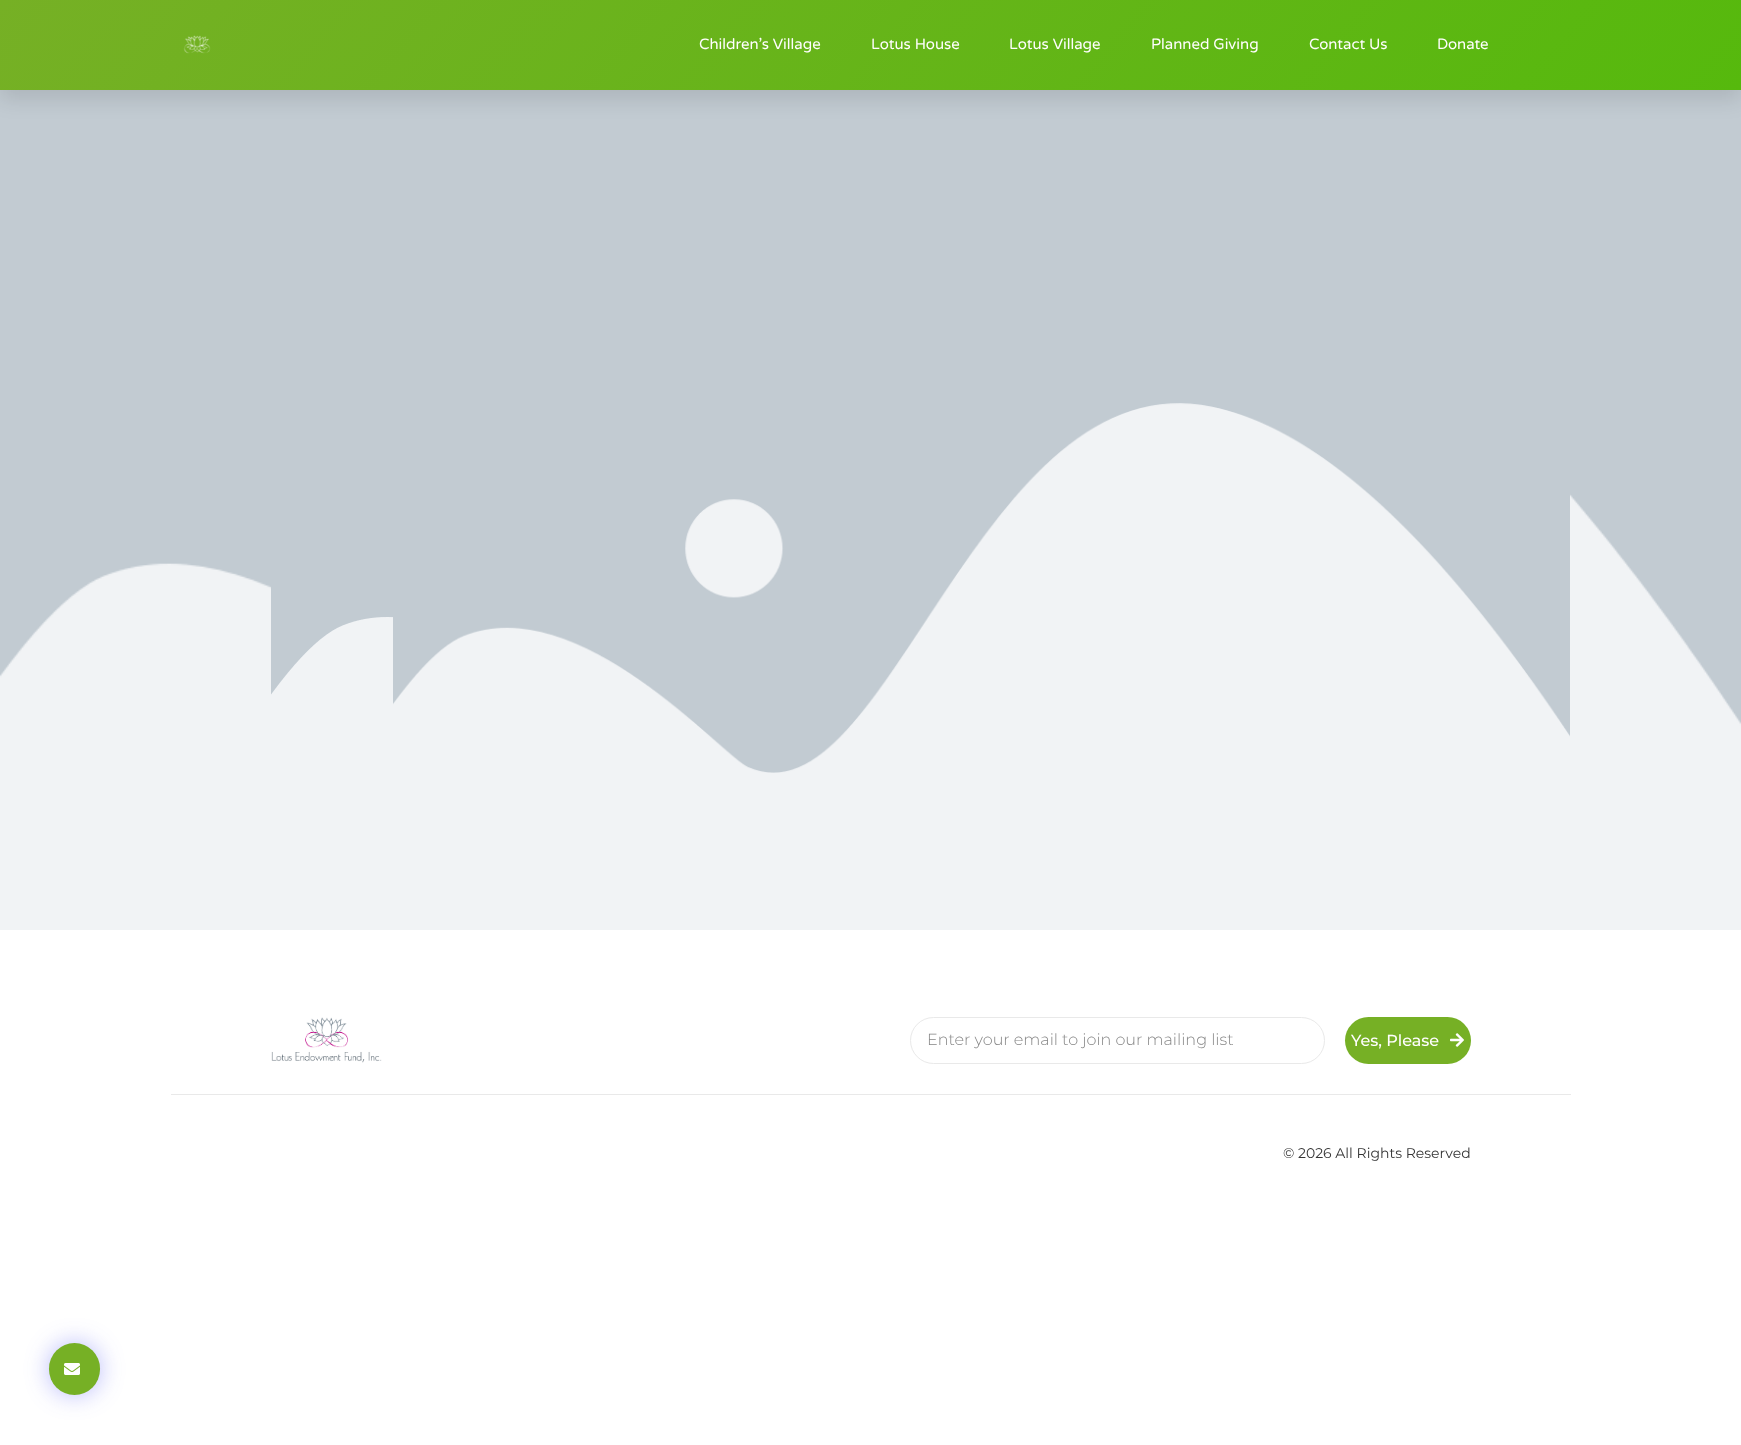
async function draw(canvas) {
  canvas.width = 1741;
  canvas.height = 1445;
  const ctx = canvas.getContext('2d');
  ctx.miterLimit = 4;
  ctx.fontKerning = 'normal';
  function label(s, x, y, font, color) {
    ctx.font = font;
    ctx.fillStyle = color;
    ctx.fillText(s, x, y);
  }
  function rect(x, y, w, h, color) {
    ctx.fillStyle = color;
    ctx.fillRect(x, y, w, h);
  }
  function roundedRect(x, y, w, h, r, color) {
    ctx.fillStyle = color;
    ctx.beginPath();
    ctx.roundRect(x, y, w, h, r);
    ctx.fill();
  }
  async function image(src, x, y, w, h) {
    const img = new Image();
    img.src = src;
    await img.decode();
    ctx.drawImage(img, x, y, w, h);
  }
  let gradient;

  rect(0, 0, 1741, 1445, '#fff');
  await image('assets/img2.png', 0, 90, 1741, 840);
  ctx.fillStyle = '#0000001a';
  ctx.filter = 'blur(10px)';
  ctx.beginPath();
  ctx.rect(0, 10, 1741, 90);
  ctx.fill();
  ctx.filter = 'none';
  gradient = ctx.createLinearGradient(338, -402, 1403, 492);
  gradient.addColorStop(0, '#76b025');
  gradient.addColorStop(1, '#56b90d');
  ctx.fillStyle = gradient;
  ctx.fillRect(0, 0, 1741, 90);
  await image('assets/img1.png', 183, 35, 28, 19);
  label('Children’s Village', 699, 49, '15px Varela Round', '#fffefe');
  label('Lotus House', 871, 49, '15px Varela Round', '#fffefe');
  label('Lotus Village', 1009, 49, '15px Varela Round', '#fffefe');
  label('Planned Giving', 1151, 49, '15px Varela Round', '#fffefe');
  label('Contact Us', 1309, 49, '15px Varela Round', '#fffefe');
  label('Donate', 1437, 49, '15px Varela Round', '#fffefe');
  await image('assets/img3.png', 271, 231, 1200, 548);
  await image('assets/img4.png', 393, 312, 1177, 461);
  await image('assets/img5.png', 271, 1017, 111, 46);
  ctx.beginPath();
  ctx.roundRect(910.5, 1017.5, 414, 46, 23);
  ctx.strokeStyle = '#e9e9e9';
  ctx.stroke();
  label('Enter your email to join our mailing list', 927, 1045, '300 16px Montserrat', '#868686');
  roundedRect(1345, 1017, 126, 47, 23.5, '#76b025');
  label('Yes, Please', 1351, 1046, '500 16px Montserrat', '#fffefe');
  await image('assets/img6.png', 1450, 1033, 14, 14);
  rect(171, 1094, 1400, 1, '#e9e9e9');
  label('© 2026 All Rights Reserved', 1283, 1158, '14px Montserrat', '#353535');
  ctx.fillStyle = '#3538f059';
  ctx.filter = 'blur(12.5px)';
  ctx.beginPath();
  ctx.roundRect(49, 1343, 51, 52, 25.5);
  ctx.fill();
  ctx.filter = 'none';
  roundedRect(49, 1343, 51, 52, 25.5, '#76b025');
  await image('assets/img7.png', 64, 1363, 16, 12);
}

draw(document.querySelector('canvas'));
